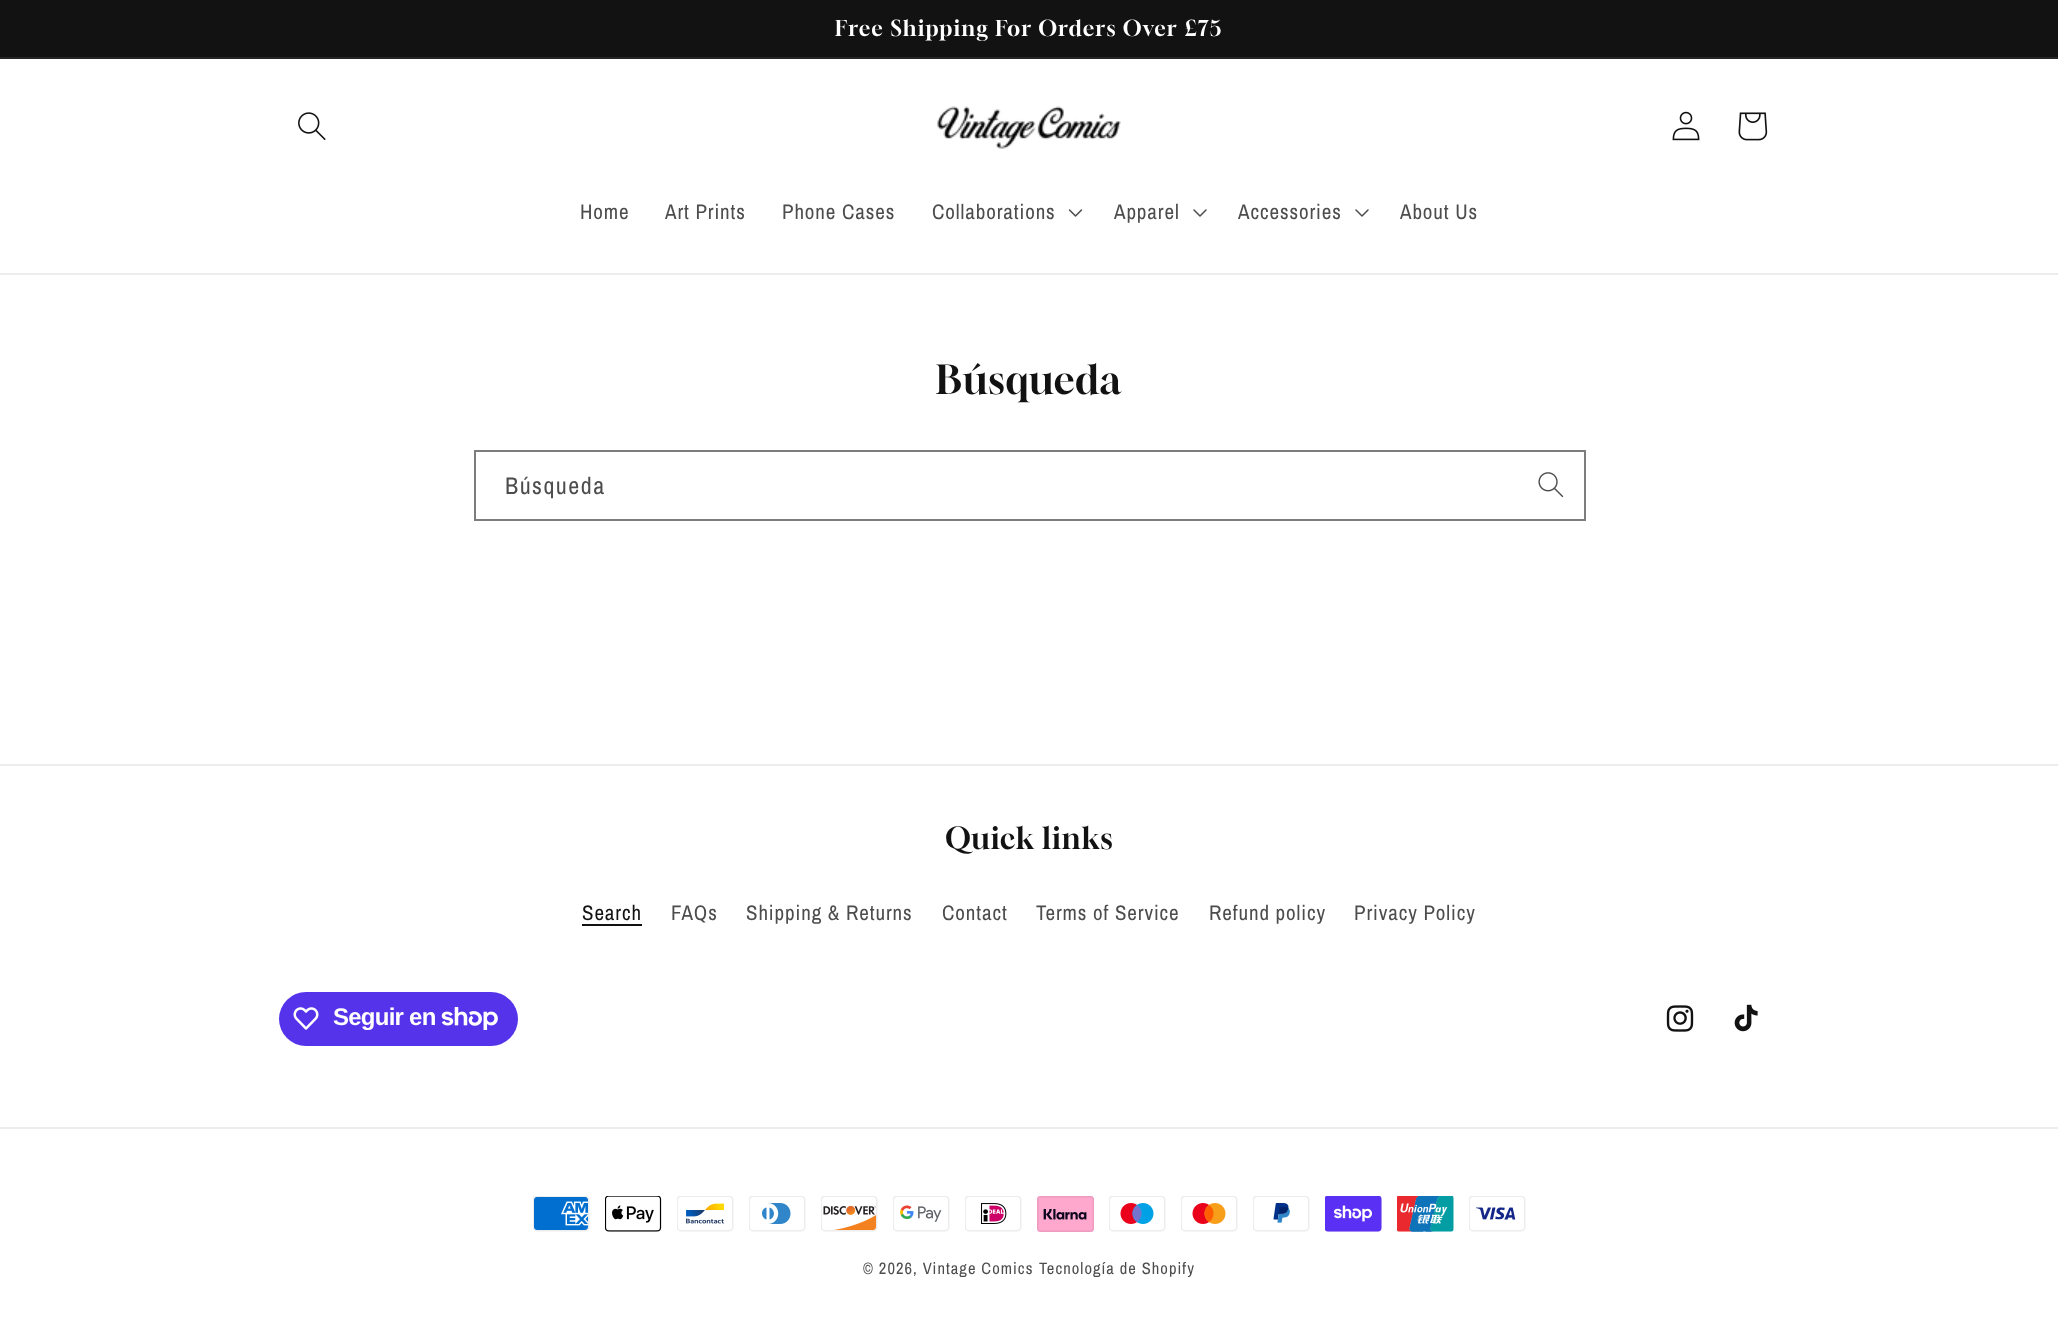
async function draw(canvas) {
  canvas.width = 2058;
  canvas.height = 1337;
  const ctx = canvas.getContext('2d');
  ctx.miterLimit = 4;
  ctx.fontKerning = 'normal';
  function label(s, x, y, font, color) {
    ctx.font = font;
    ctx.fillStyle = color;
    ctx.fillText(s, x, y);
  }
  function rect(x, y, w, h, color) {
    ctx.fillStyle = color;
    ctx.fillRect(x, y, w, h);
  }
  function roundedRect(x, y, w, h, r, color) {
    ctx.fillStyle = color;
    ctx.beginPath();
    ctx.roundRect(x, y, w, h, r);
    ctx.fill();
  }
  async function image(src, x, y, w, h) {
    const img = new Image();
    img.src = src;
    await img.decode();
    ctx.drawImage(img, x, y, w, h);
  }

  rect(0, 0, 2058, 1337, '#fff');
  rect(0, 0, 2058, 57, '#121212');
  rect(0, 57, 2058, 2, '#252525');
  ctx.letterSpacing = '1.5px';
  label('Free Shipping For Orders Over £75', 835, 36, '21.5px Gloock', '#fff');
  rect(0, 273, 2058, 2, '#ececec');
  await image('assets/img1.png', 298, 112, 28, 28);
  await image('assets/img2.png', 937, 106, 184, 43);
  await image('assets/img3.png', 1672, 111, 28, 30);
  await image('assets/img4.png', 1738, 112, 30, 29);
  ctx.letterSpacing = '0.9px';
  label('Home', 580, 219, '21px Archivo Narrow', '#4d4d4d');
  label('Art Prints', 665, 219, '21px Archivo Narrow', '#4d4d4d');
  label('Phone Cases', 782, 219, '21px Archivo Narrow', '#4d4d4d');
  label('Collaborations', 932, 219, '21px Archivo Narrow', '#4d4d4d');
  await image('assets/img5.png', 1068, 209, 15, 8);
  label('Apparel', 1114, 219, '21px Archivo Narrow', '#4d4d4d');
  await image('assets/img6.png', 1193, 209, 14, 8);
  label('Accessories', 1238, 219, '21px Archivo Narrow', '#4d4d4d');
  await image('assets/img6.png', 1355, 209, 14, 8);
  label('About Us', 1400, 219, '21px Archivo Narrow', '#4d4d4d');
  ctx.letterSpacing = '1px';
  label('Búsqueda', 936, 394, '39.5px Gloock', '#121212');
  await image('assets/img7.png', 1538, 472, 26, 26);
  ctx.strokeStyle = '#7d7d7d';
  ctx.lineWidth = 2;
  ctx.strokeRect(475, 451, 1110, 69);
  ctx.letterSpacing = '1.5px';
  label('Búsqueda', 505, 494, '24px Archivo Narrow', '#4d4d4d');
  rect(0, 764, 2058, 2, '#ececec');
  ctx.letterSpacing = '1px';
  label('Quick links', 945, 849, '29.75px Gloock', '#121212');
  ctx.letterSpacing = '0.9px';
  label('Search', 582, 920, '21px Archivo Narrow', '#121212');
  rect(582, 924, 60, 2, '#121212');
  label('FAQs', 671, 920, '21px Archivo Narrow', '#4d4d4d');
  label('Shipping & Returns', 746, 920, '21px Archivo Narrow', '#4d4d4d');
  label('Contact', 942, 920, '21px Archivo Narrow', '#4d4d4d');
  label('Terms of Service', 1036, 920, '21px Archivo Narrow', '#4d4d4d');
  label('Refund policy', 1209, 920, '21px Archivo Narrow', '#4d4d4d');
  label('Privacy Policy', 1354, 920, '21px Archivo Narrow', '#4d4d4d');
  roundedRect(279, 992, 239, 54, 27, '#5433eb');
  await image('assets/img8.png', 293, 1007, 26, 23);
  ctx.letterSpacing = '-0.75px';
  label('Seguir en', 333, 1025, 'bold 24px Liberation Sans', '#fff');
  await image('assets/img9.png', 441, 1007, 57, 23);
  await image('assets/img10.png', 1666, 1005, 28, 27);
  await image('assets/img11.png', 1734, 1004, 24, 28);
  rect(0, 1127, 2058, 2, '#ececec');
  await image('assets/img12.png', 533, 1196, 57, 36);
  await image('assets/img13.png', 605, 1196, 57, 36);
  await image('assets/img14.png', 677, 1196, 57, 36);
  await image('assets/img15.png', 749, 1196, 57, 36);
  await image('assets/img16.png', 821, 1196, 57, 36);
  await image('assets/img17.png', 893, 1196, 57, 36);
  await image('assets/img18.png', 965, 1196, 57, 36);
  await image('assets/img19.png', 1037, 1196, 57, 36);
  await image('assets/img20.png', 1109, 1196, 57, 36);
  await image('assets/img21.png', 1181, 1196, 57, 36);
  await image('assets/img22.png', 1253, 1196, 57, 36);
  await image('assets/img23.png', 1325, 1196, 57, 36);
  await image('assets/img24.png', 1397, 1196, 57, 36);
  await image('assets/img25.png', 1469, 1196, 57, 36);
  ctx.letterSpacing = '1.05px';
  label('© 2026, Vintage Comics', 863, 1274, '16.5px Archivo Narrow', '#4d4d4d');
  label('Tecnología de Shopify', 1039, 1274, '16.5px Archivo Narrow', '#4d4d4d');
}

draw(document.querySelector('canvas'));
